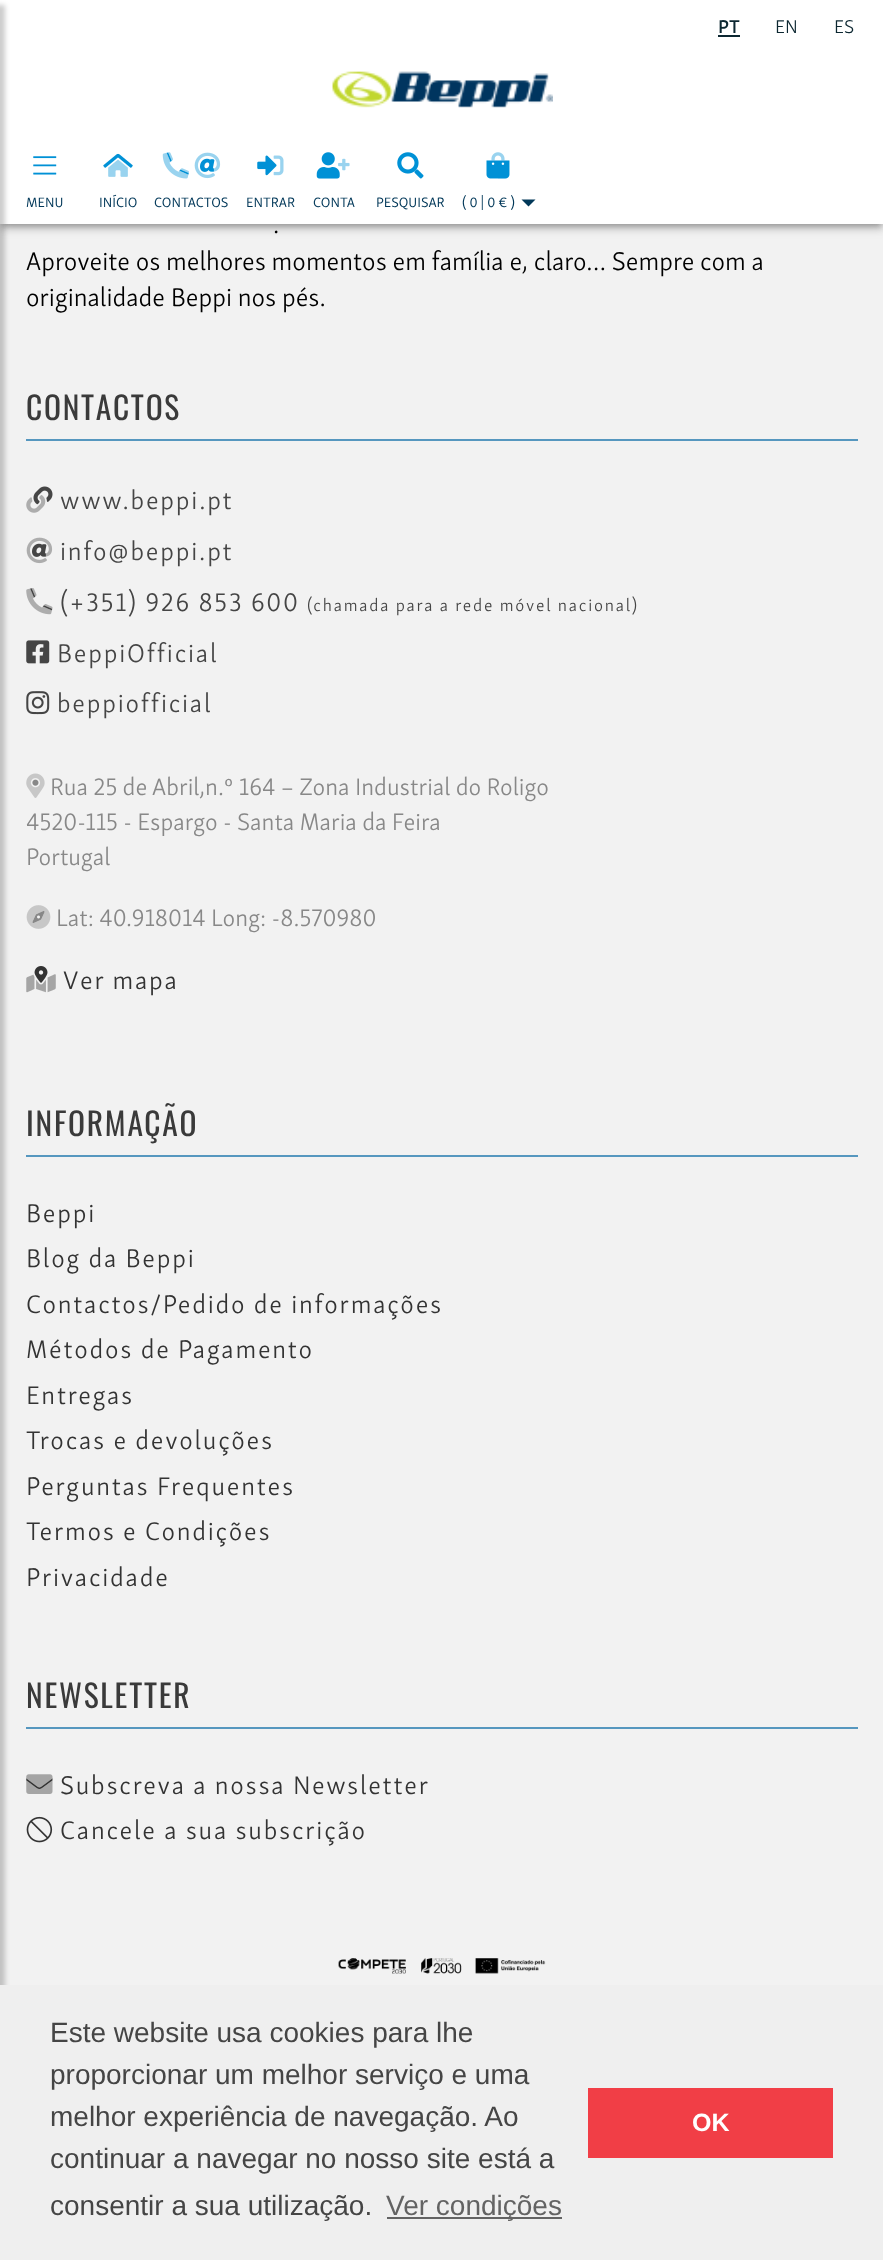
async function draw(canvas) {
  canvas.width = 883;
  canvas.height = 2260;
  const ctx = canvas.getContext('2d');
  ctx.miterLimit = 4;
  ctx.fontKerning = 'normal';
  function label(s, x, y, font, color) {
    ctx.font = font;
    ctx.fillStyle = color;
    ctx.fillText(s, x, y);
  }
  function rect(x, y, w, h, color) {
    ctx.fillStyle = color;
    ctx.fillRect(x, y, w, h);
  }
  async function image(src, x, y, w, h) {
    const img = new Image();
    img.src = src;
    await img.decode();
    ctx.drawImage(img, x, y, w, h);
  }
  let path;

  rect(0, 0, 883, 2260, '#f2f2f2');
  ctx.fillStyle = '#0000001f';
  ctx.filter = 'blur(7px)';
  ctx.beginPath();
  ctx.rect(0, 2, 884, 224);
  ctx.fill();
  ctx.filter = 'none';
  ctx.fillStyle = '#00000033';
  ctx.filter = 'blur(2.5px)';
  ctx.beginPath();
  ctx.rect(4, 9, 876, 217);
  ctx.fill();
  ctx.filter = 'none';
  ctx.fillStyle = '#00000024';
  ctx.filter = 'blur(3.5px)';
  ctx.beginPath();
  ctx.rect(0, 5, 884, 224);
  ctx.fill();
  ctx.filter = 'none';
  rect(0, 0, 883, 224, '#fff');
  ctx.fillStyle = '#00000033';
  ctx.filter = 'blur(2.5px)';
  ctx.beginPath();
  ctx.rect(-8, 5, 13, 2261);
  ctx.fill();
  ctx.filter = 'none';
  label('PT', 718, 33, '600 19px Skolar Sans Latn', '#0c2731');
  rect(718, 35, 22, 2, '#0c2731');
  label('EN', 775, 33, '300 19px Skolar Sans Latn', '#0c2731');
  label('ES', 834, 33, '300 19px Skolar Sans Latn', '#0c2731');
  await image('assets/img1.png', 332, 71, 221, 37);
  await image('assets/img2.png', 33, 156, 24, 19);
  label('MENU', 26, 207, '14px Skolar Sans Latn', '#023859');
  await image('assets/img3.png', 103, 153, 30, 24);
  label('INÍCIO', 99, 207, '14px Skolar Sans Latn', '#023859');
  await image('assets/img4.png', 162, 152, 27, 27);
  await image('assets/img5.png', 194, 152, 27, 27);
  label('CONTACTOS', 154, 207, '14px Skolar Sans Latn', '#023859');
  await image('assets/img6.png', 257, 155, 27, 21);
  label('ENTRAR', 246, 207, '14px Skolar Sans Latn', '#023859');
  await image('assets/img7.png', 316, 152, 34, 27);
  label('CONTA', 313, 207, '14px Skolar Sans Latn', '#023859');
  await image('assets/img8.png', 397, 152, 27, 27);
  label('PESQUISAR', 376, 207, '14px Skolar Sans Latn', '#023859');
  await image('assets/img9.png', 486, 152, 24, 27);
  label('( 0 | 0 € )', 462, 207, '14px Skolar Sans Latn', '#023859');
  path = new Path2D('M521.5 199.5H535.5L528.5 206.5Z');
  ctx.fill(path);
  label('.', 273, 233, '300 26.25px Skolar Sans Latn', '#000');
  label('Aproveite os melhores momentos em família e, claro… Sempre com a', 26, 270, '300 26.25px Skolar Sans Latn', '#000');
  label('originalidade Beppi nos pés.', 26, 306, '300 26.25px Skolar Sans Latn', '#000');
  rect(26, 439, 832, 2, '#5697bf');
  ctx.letterSpacing = '1.75px';
  label('CONTACTOS', 26, 420, '31.5px Oswald', '#3a3a3a');
  await image('assets/img10.png', 26, 486, 27, 27);
  label('www.beppi.pt', 60, 509, '300 26.25px Skolar Sans Latn', '#454545');
  await image('assets/img11.png', 26, 537, 27, 27);
  label('info@beppi.pt', 60, 560, '300 26.25px Skolar Sans Latn', '#454545');
  await image('assets/img12.png', 26, 588, 27, 27);
  label('(+351) 926 853 600', 60, 611, '300 26.25px Skolar Sans Latn', '#454545');
  label('(chamada para a rede móvel nacional)', 307, 611, '300 17.5px Skolar Sans Latn', '#454545');
  await image('assets/img13.png', 26, 640, 24, 24);
  label('BeppiOfficial', 57, 662, '300 26.25px Skolar Sans Latn', '#454545');
  await image('assets/img14.png', 26, 691, 24, 24);
  label('beppiofficial', 57, 712, '300 26.25px Skolar Sans Latn', '#454545');
  await image('assets/img15.png', 26, 773, 19, 25);
  ctx.letterSpacing = '0px';
  label('Rua 25 de Abril,n.º 164 – Zona Industrial do Roligo', 50, 795, '300 24.5px Skolar Sans Latn', '#888');
  label('4520-115 - Espargo - Santa Maria da Feira', 26, 830, '300 24.5px Skolar Sans Latn', '#888');
  label('Portugal', 26, 865, '300 24.5px Skolar Sans Latn', '#888');
  await image('assets/img16.png', 26, 905, 25, 24);
  label('Lat: 40.918014 Long: -8.570980', 56, 926, '300 24.5px Skolar Sans Latn', '#888');
  await image('assets/img17.png', 26, 966, 30, 27);
  ctx.letterSpacing = '1.75px';
  label('Ver mapa', 63, 989, '300 26.25px Skolar Sans Latn', '#333');
  rect(26, 1155, 832, 2, '#5697bf');
  label('INFORMAÇÃO', 26, 1136, '31.5px Oswald', '#3a3a3a');
  label('Beppi', 26, 1222, '300 26.25px Skolar Sans Latn', '#333');
  label('Blog da Beppi', 26, 1267, '300 26.25px Skolar Sans Latn', '#333');
  label('Contactos/Pedido de informações', 26, 1313, '300 26.25px Skolar Sans Latn', '#333');
  label('Métodos de Pagamento', 26, 1358, '300 26.25px Skolar Sans Latn', '#333');
  label('Entregas', 26, 1404, '300 26.25px Skolar Sans Latn', '#333');
  label('Trocas e devoluções', 26, 1449, '300 26.25px Skolar Sans Latn', '#333');
  label('Perguntas Frequentes', 26, 1495, '300 26.25px Skolar Sans Latn', '#333');
  label('Termos e Condições', 26, 1540, '300 26.25px Skolar Sans Latn', '#333');
  label('Privacidade', 26, 1586, '300 26.25px Skolar Sans Latn', '#333');
  rect(26, 1727, 832, 2, '#5697bf');
  label('NEWSLETTER', 26, 1708, '31.5px Oswald', '#3a3a3a');
  await image('assets/img18.png', 26, 1774, 27, 20);
  label('Subscreva a nossa Newsletter', 60, 1794, '300 26.25px Skolar Sans Latn', '#333');
  await image('assets/img19.png', 26, 1816, 27, 27);
  label('Cancele a sua subscrição', 60, 1839, '300 26.25px Skolar Sans Latn', '#333');
  await image('assets/img20.png', 338, 1958, 208, 16);
  rect(0, 1985, 883, 275, '#efefef');
  ctx.letterSpacing = '0px';
  label('Este website usa cookies para lhe', 50, 2042, '28px Liberation Sans', '#454545');
  label('proporcionar um melhor serviço e uma', 50, 2084, '28px Liberation Sans', '#454545');
  label('melhor experiência de navegação. Ao', 50, 2126, '28px Liberation Sans', '#454545');
  label('continuar a navegar no nosso site está a', 50, 2168, '28px Liberation Sans', '#454545');
  label('consentir a sua utilização.', 50, 2215, '28px Liberation Sans', '#454545');
  rect(387, 2217, 175, 2, '#636363');
  label('Ver condições', 386, 2215, '28px Liberation Sans', '#636363');
  rect(588, 2088, 245, 70, '#f13e46');
  label('OK', 692, 2131, 'bold 25px Liberation Sans', '#fff');
}

draw(document.querySelector('canvas'));
